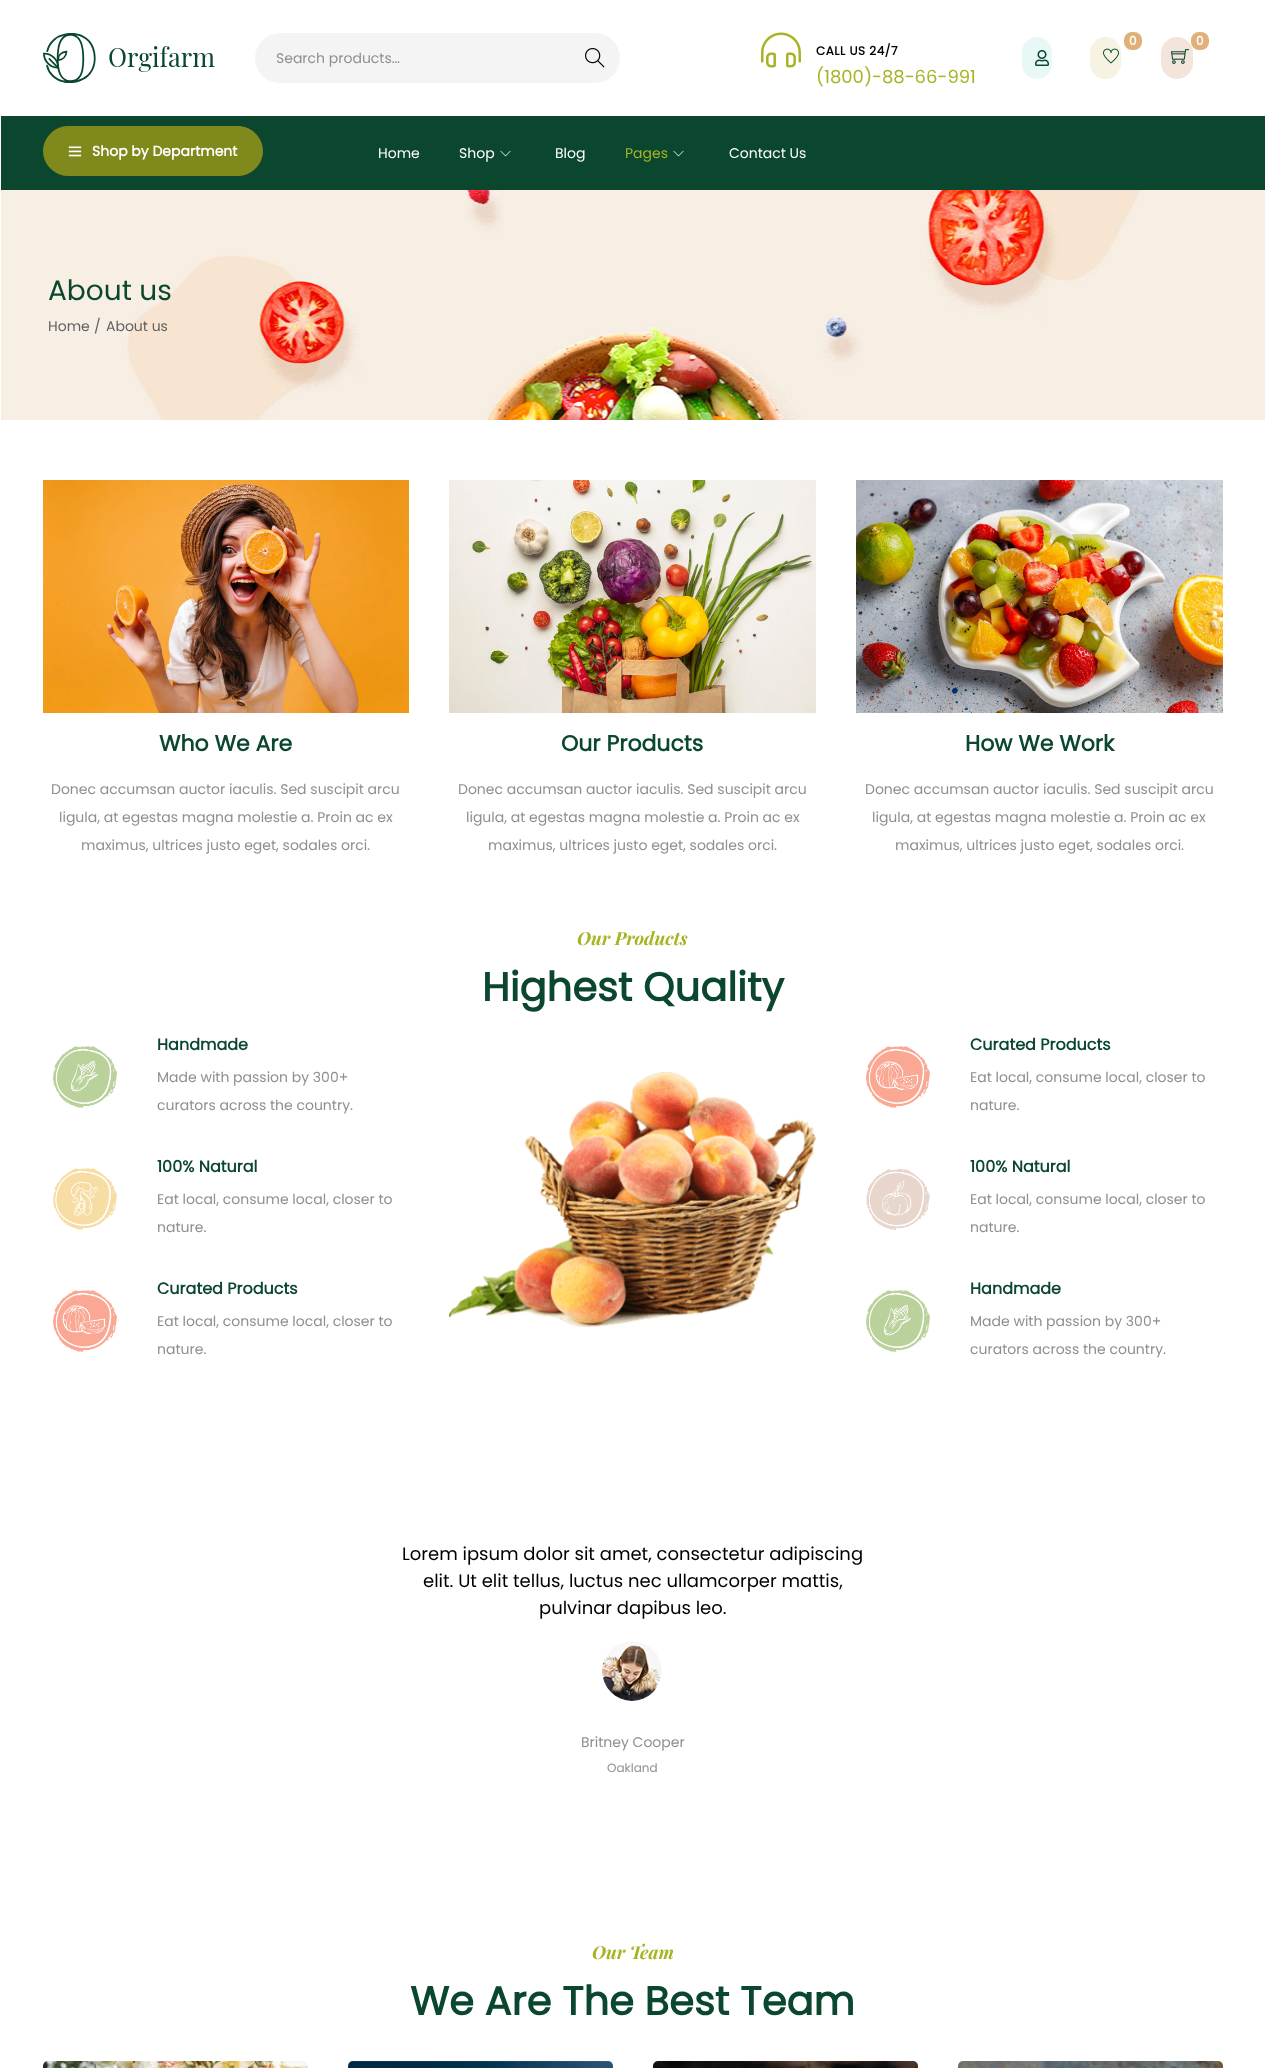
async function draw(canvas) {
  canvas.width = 1265;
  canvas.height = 2068;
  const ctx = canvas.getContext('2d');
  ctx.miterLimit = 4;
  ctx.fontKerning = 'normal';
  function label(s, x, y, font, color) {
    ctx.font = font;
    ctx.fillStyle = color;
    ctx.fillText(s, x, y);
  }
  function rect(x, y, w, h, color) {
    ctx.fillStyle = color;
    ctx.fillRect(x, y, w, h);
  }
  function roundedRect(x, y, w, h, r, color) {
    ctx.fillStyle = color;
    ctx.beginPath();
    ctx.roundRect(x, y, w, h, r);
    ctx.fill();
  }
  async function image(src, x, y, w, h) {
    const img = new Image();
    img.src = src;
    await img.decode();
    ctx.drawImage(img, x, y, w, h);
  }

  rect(0, 0, 1265, 2068, '#fff');
  await image('assets/img1.png', 43, 33, 172, 50);
  roundedRect(255, 33, 365, 50, 25, '#f4f4f4');
  label('Search products…', 276, 63, '14px Poppins', '#8f8f8f');
  await image('assets/img2.png', 585, 48, 20, 20);
  roundedRect(1022, 37, 30, 42, 15, '#e8f8f7');
  await image('assets/img3.png', 1035, 50, 14, 16);
  roundedRect(1090, 37, 31, 42, 15.5, '#f6f3e3');
  roundedRect(1124, 32, 18, 18, 8, '#dfb178');
  label('0', 1129, 45, 'bold 12px Poppins', '#fff');
  await image('assets/img4.png', 1103, 48, 16, 16);
  roundedRect(1161, 37, 32, 42, 16, '#f3e4dc');
  roundedRect(1191, 32, 18, 18, 8, '#dfb178');
  label('0', 1196, 45, 'bold 12px Poppins', '#fff');
  await image('assets/img5.png', 1171, 49, 18, 15);
  await image('assets/img6.png', 761, 32, 40, 36);
  ctx.letterSpacing = '0.5px';
  label('CALL US 24/7', 816, 55, 'bold 12px Poppins', '#000');
  ctx.letterSpacing = '0px';
  label('(1800)-88-66-991', 816, 83, '18px Poppins', '#a8b324');
  rect(1, 116, 1264, 74, '#0a472e');
  ctx.fillStyle = '#80891b';
  ctx.beginPath();
  ctx.roundRect(43.5, 126.5, 219, 49, 24.5);
  ctx.fill();
  ctx.strokeStyle = '#80891b';
  ctx.stroke();
  await image('assets/img7.png', 68, 146, 14, 11);
  label('Shop by Department', 92, 156, 'bold 14px Poppins', '#fff');
  label('Home', 378, 158, '14px Poppins', '#fff');
  label('Shop', 459, 158, '14px Poppins', '#fff');
  await image('assets/img8.png', 500, 150, 11, 7);
  label('Blog', 555, 158, '14px Poppins', '#fff');
  label('Pages', 625, 158, '14px Poppins', '#a8b324');
  await image('assets/img8.png', 673, 150, 11, 7);
  label('Contact Us', 729, 158, '14px Poppins', '#fff');
  await image('assets/img9.png', 1, 190, 1264, 230);
  label('About us', 48, 300, '28px Poppins', '#0a472e');
  label('Home', 48, 331, '14px Poppins', '#606060');
  label('/', 94, 331, '14px Poppins', '#606060');
  label('About us', 106, 331, '14px Poppins', '#606060');
  await image('assets/img10.png', 43, 480, 366, 233);
  label('Who We Are', 159, 751, 'bold 22px Poppins', '#0a472e');
  label('Donec accumsan auctor iaculis. Sed suscipit arcu', 51, 794, '14px Poppins', '#8f8f8f');
  label('ligula, at egestas magna molestie a. Proin ac ex', 59, 822, '14px Poppins', '#8f8f8f');
  label('maximus, ultrices justo eget, sodales orci.', 81, 850, '14px Poppins', '#8f8f8f');
  await image('assets/img11.png', 449, 480, 367, 233);
  label('Our Products', 561, 751, 'bold 22px Poppins', '#0a472e');
  label('Donec accumsan auctor iaculis. Sed suscipit arcu', 458, 794, '14px Poppins', '#8f8f8f');
  label('ligula, at egestas magna molestie a. Proin ac ex', 466, 822, '14px Poppins', '#8f8f8f');
  label('maximus, ultrices justo eget, sodales orci.', 488, 850, '14px Poppins', '#8f8f8f');
  await image('assets/img12.png', 856, 480, 367, 233);
  label('How We Work', 965, 751, 'bold 22px Poppins', '#0a472e');
  label('Donec accumsan auctor iaculis. Sed suscipit arcu', 865, 794, '14px Poppins', '#8f8f8f');
  label('ligula, at egestas magna molestie a. Proin ac ex', 872, 822, '14px Poppins', '#8f8f8f');
  label('maximus, ultrices justo eget, sodales orci.', 895, 850, '14px Poppins', '#8f8f8f');
  label('Our Products', 577, 945, 'italic bold 18px Playfair Display', '#a8b324');
  label('Highest Quality', 482, 1001, 'bold 40px Poppins', '#0a472e');
  await image('assets/img13.png', 53, 1046, 64, 62);
  label('Handmade', 157, 1050, 'bold 16px Poppins', '#0a472e');
  label('Made with passion by 300+', 157, 1082, '14px Poppins', '#8f8f8f');
  label('curators across the country.', 157, 1110, '14px Poppins', '#8f8f8f');
  await image('assets/img14.png', 53, 1168, 64, 62);
  label('100% Natural', 157, 1172, 'bold 16px Poppins', '#0a472e');
  label('Eat local, consume local, closer to', 157, 1204, '14px Poppins', '#8f8f8f');
  label('nature.', 157, 1232, '14px Poppins', '#8f8f8f');
  await image('assets/img15.png', 53, 1290, 64, 62);
  label('Curated Products', 157, 1294, 'bold 16px Poppins', '#0a472e');
  label('Eat local, consume local, closer to', 157, 1326, '14px Poppins', '#8f8f8f');
  label('nature.', 157, 1354, '14px Poppins', '#8f8f8f');
  await image('assets/img16.png', 449, 1072, 367, 255);
  await image('assets/img15.png', 866, 1046, 64, 62);
  label('Curated Products', 970, 1050, 'bold 16px Poppins', '#0a472e');
  label('Eat local, consume local, closer to', 970, 1082, '14px Poppins', '#8f8f8f');
  label('nature.', 970, 1110, '14px Poppins', '#8f8f8f');
  await image('assets/img17.png', 866, 1169, 64, 61);
  label('100% Natural', 970, 1172, 'bold 16px Poppins', '#0a472e');
  label('Eat local, consume local, closer to', 970, 1204, '14px Poppins', '#8f8f8f');
  label('nature.', 970, 1232, '14px Poppins', '#8f8f8f');
  await image('assets/img13.png', 866, 1290, 64, 62);
  label('Handmade', 970, 1294, 'bold 16px Poppins', '#0a472e');
  label('Made with passion by 300+', 970, 1326, '14px Poppins', '#8f8f8f');
  label('curators across the country.', 970, 1354, '14px Poppins', '#8f8f8f');
  label('Lorem ipsum dolor sit amet, consectetur adipiscing', 402, 1560, '18px Poppins', '#000');
  label('elit. Ut elit tellus, luctus nec ullamcorper mattis,', 423, 1587, '18px Poppins', '#000');
  label('pulvinar dapibus leo.', 539, 1614, '18px Poppins', '#000');
  await image('assets/img18.png', 602, 1641, 60, 60);
  label('Britney Cooper', 581, 1747, '14px Poppins', '#8f8f8f');
  label('Oakland', 607, 1772, '12px Poppins', '#8f8f8f');
  label('Our Team', 592, 1959, 'italic bold 18px Playfair Display', '#a8b324');
  label('We Are The Best Team', 410, 2015, 'bold 40px Poppins', '#0a472e');
  await image('assets/img19.png', 43, 2061, 265, 7);
  await image('assets/img20.png', 348, 2061, 265, 7);
  await image('assets/img21.png', 653, 2061, 265, 7);
  await image('assets/img22.png', 958, 2061, 265, 7);
}

draw(document.querySelector('canvas'));
